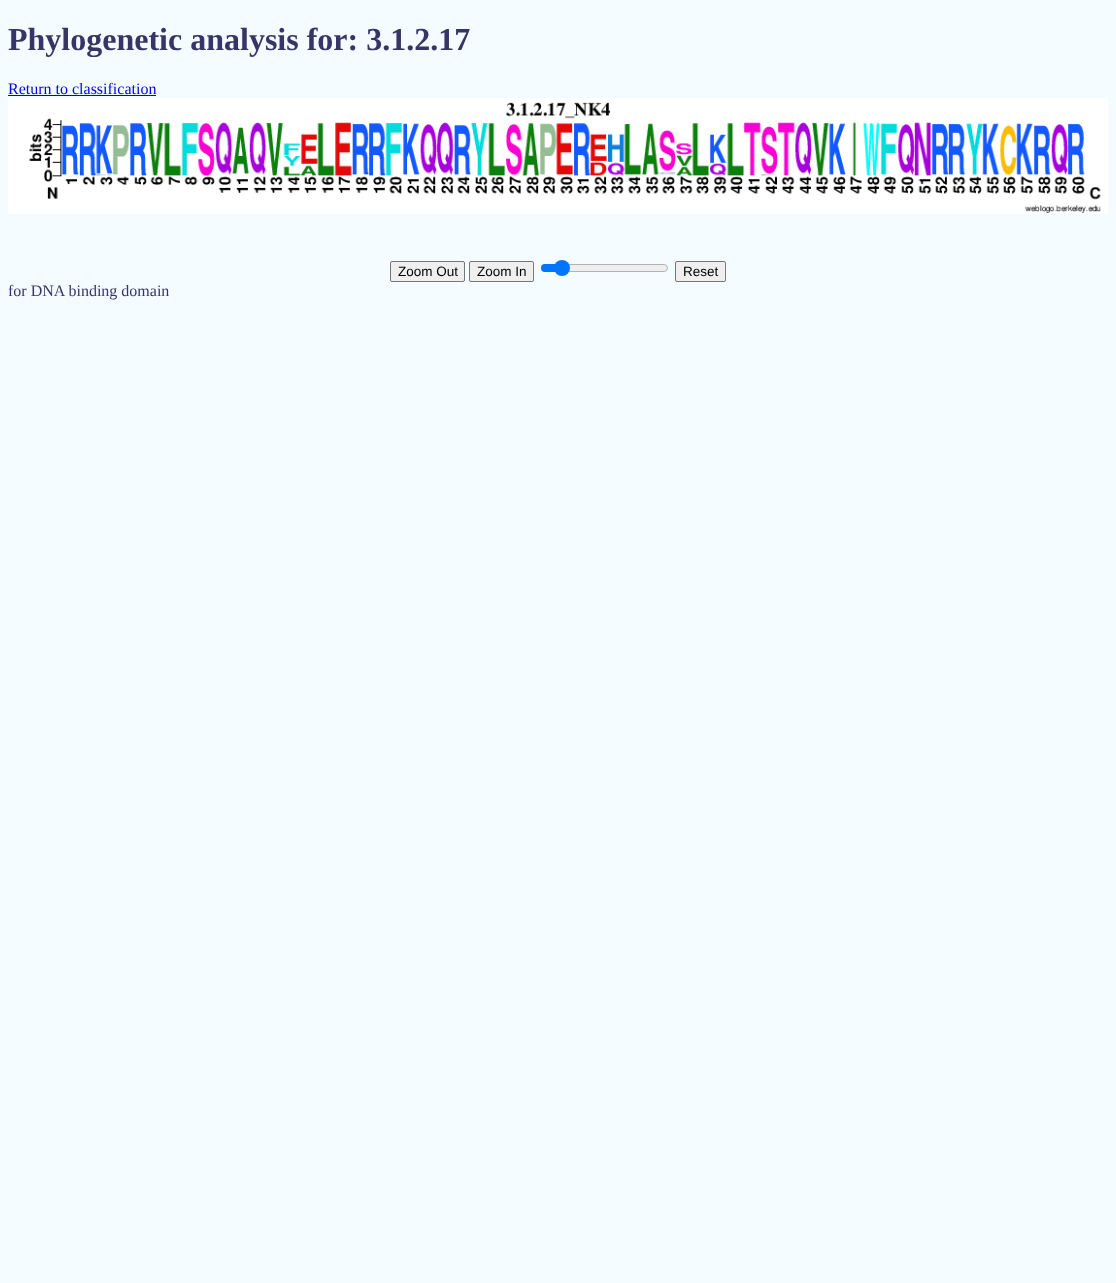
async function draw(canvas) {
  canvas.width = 1116;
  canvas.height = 1283;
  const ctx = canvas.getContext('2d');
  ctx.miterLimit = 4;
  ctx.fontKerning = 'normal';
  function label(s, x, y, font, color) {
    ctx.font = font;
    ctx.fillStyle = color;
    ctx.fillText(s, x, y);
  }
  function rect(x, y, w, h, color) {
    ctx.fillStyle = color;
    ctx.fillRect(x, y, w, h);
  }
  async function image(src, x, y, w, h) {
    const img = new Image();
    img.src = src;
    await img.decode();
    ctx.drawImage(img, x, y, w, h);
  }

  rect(0, 0, 1116, 1283, '#f5fcff');
  label('Phylogenetic analysis for: 3.1.2.17', 8, 50, 'bold 32px Liberation Serif', '#333666');
  label('Return to classification', 8, 94, '16px Liberation Serif', '#00e');
  rect(8, 95, 148, 1, '#00e');
  await image('assets/img1.png', 8, 98, 1100, 116);
  ctx.fillStyle = '#efefef';
  ctx.beginPath();
  ctx.roundRect(390.5, 261.5, 74, 20, 1.5);
  ctx.fill();
  ctx.strokeStyle = '#767676';
  ctx.stroke();
  label('Zoom Out', 398, 276, '13.5px Liberation Sans', '#000');
  ctx.fillStyle = '#efefef';
  ctx.beginPath();
  ctx.roundRect(469.5, 261.5, 64, 20, 1.5);
  ctx.fill();
  ctx.stroke();
  label('Zoom In', 477, 276, '13.5px Liberation Sans', '#000');
  ctx.fillStyle = '#efefef';
  ctx.beginPath();
  ctx.roundRect(541.5, 264.5, 126, 7, 3.5);
  ctx.fill();
  ctx.strokeStyle = '#b2b2b2';
  ctx.stroke();
  ctx.fillStyle = '#0075ff';
  ctx.beginPath();
  ctx.roundRect(541, 264, 21, 8, [4, 0, 0, 4]);
  ctx.fill();
  ctx.beginPath();
  ctx.arc(562, 268, 8, 0, 2 * Math.PI);
  ctx.fill();
  ctx.fillStyle = '#efefef';
  ctx.beginPath();
  ctx.roundRect(675.5, 261.5, 50, 20, 1.5);
  ctx.fill();
  ctx.strokeStyle = '#767676';
  ctx.stroke();
  label('Reset', 683, 276, '13.5px Liberation Sans', '#000');
  label('for DNA binding domain', 8, 296, '16px Liberation Serif', '#333666');
}

draw(document.querySelector('canvas'));
